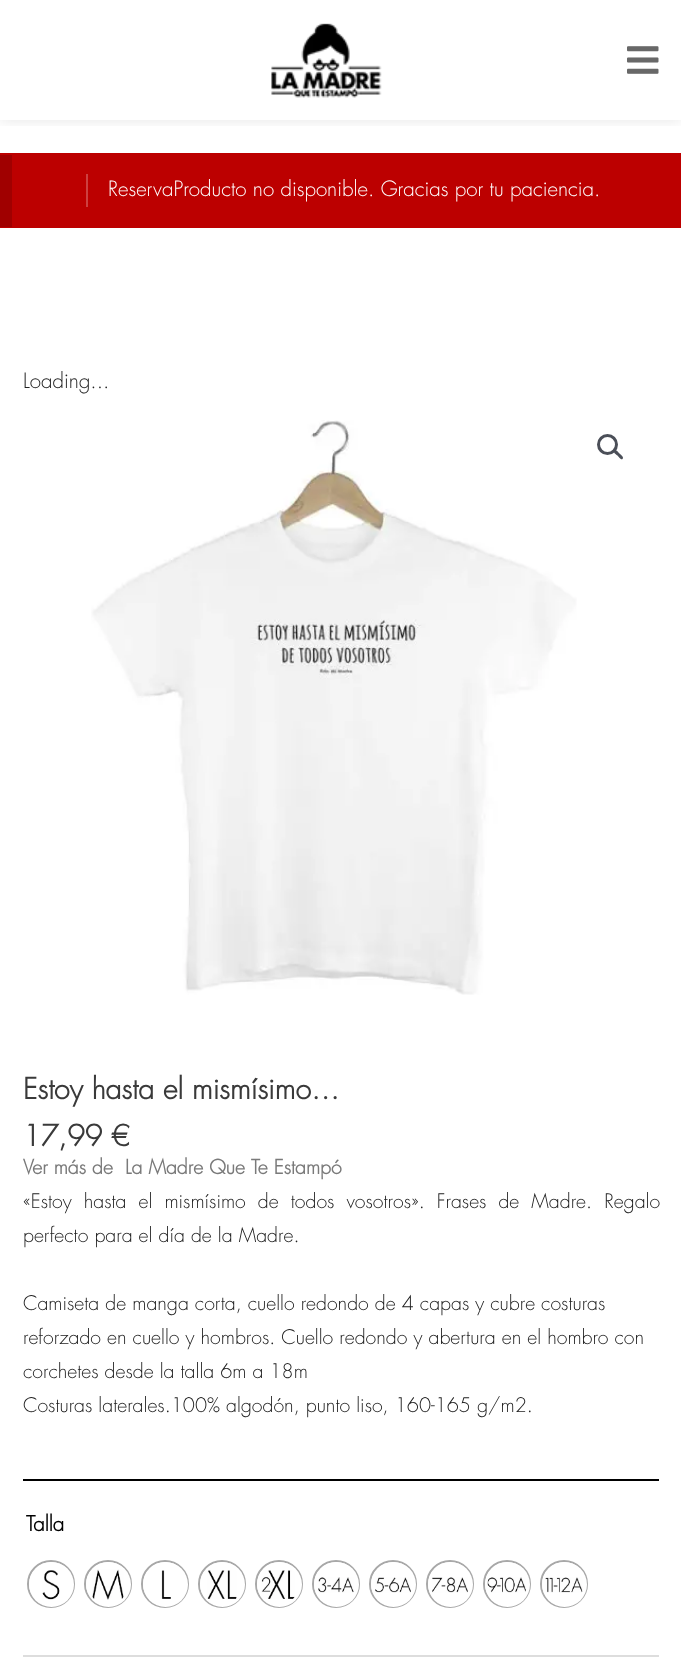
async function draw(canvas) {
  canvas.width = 681;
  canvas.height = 1674;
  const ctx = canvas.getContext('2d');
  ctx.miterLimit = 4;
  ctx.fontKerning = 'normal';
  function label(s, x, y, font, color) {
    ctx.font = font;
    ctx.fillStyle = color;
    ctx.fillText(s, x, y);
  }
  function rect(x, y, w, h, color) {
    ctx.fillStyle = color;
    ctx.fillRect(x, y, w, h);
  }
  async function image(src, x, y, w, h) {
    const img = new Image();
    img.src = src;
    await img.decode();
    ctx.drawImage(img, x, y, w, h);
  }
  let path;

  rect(0, 0, 681, 1674, '#fff');
  ctx.save();
  ctx.beginPath();
  ctx.rect(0, 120, 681, 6);
  ctx.clip();
  ctx.fillStyle = '#0000001a';
  ctx.filter = 'blur(7.5px)';
  ctx.beginPath();
  ctx.rect(0, 0, 681, 120);
  ctx.fill();
  ctx.filter = 'none';
  ctx.restore();
  await image('assets/img1.png', 271, 23, 111, 75);
  await image('assets/img2.png', 627, 46, 32, 28);
  rect(0, 153, 681, 75, '#bc0000');
  rect(0, 155, 12, 72, '#a00000');
  rect(86, 174, 2, 33, '#cd4040');
  label('ReservaProducto no disponible. Gracias por tu paciencia.', 108, 196, '300 20.5px Futura', '#fff');
  label('Loading...', 23, 388, '300 20.5px Futura', '#212121');
  await image('assets/img3.png', 91, 420, 486, 575);
  ctx.beginPath();
  ctx.arc(607.5, 444.5, 9, 0, 2 * Math.PI);
  ctx.strokeStyle = '#4b4f58';
  ctx.lineWidth = 3;
  ctx.stroke();
  ctx.fillStyle = '#4b4f58';
  path = new Path2D('M614 450.5C616 448.5 618.5 452.5 619.5 453.5C620.5 454.5 624.5 457 622.5 459C621 460.5 618.5 456.5 617.5 455.5C616.5 455 612.5 452 614 450.5Z');
  ctx.fill(path);
  label('Estoy hasta el mismísimo…', 23, 1099, 'bold 28.5px Futura', '#3a3a3a');
  label('17,99 €', 23, 1146, 'bold 28.5px Futura', '#3a3a3a');
  label('Ver más de  La Madre Que Te Estampó', 23, 1174, 'bold 19.5px Futura', '#7a7a7a');
  ctx.wordSpacing = '6px';
  label('«Estoy hasta el mismísimo de todos vosotros». Frases de Madre. Regalo', 23, 1208, '300 19.5px Futura', '#212121');
  ctx.wordSpacing = '0px';
  label('perfecto para el día de la Madre.', 23, 1242, '300 19.5px Futura', '#212121');
  label('Camiseta de manga corta, cuello redondo de 4 capas y cubre costuras', 23, 1310, '300 19.5px Futura', '#212121');
  label('reforzado en cuello y hombros. Cuello redondo y abertura en el hombro con', 23, 1344, '300 19.5px Futura', '#212121');
  label('corchetes desde la talla 6m a 18m', 23, 1378, '300 19.5px Futura', '#212121');
  label('Costuras laterales.100% algodón, punto liso, 160-165 g/m2.', 23, 1412, '300 19.5px Futura', '#212121');
  rect(23, 1479, 636, 2, '#000');
  rect(23, 1655, 636, 2, '#ddd');
  label('Talla', 26, 1531, 'bold 20.5px Futura', '#000');
  ctx.beginPath();
  ctx.arc(51, 1584, 23, 0, 2 * Math.PI);
  ctx.strokeStyle = '#a8a8a8';
  ctx.lineWidth = 2;
  ctx.stroke();
  ctx.fillStyle = '#fff';
  ctx.beginPath();
  ctx.arc(51.5, 1584.5, 22.5, 0, 2 * Math.PI);
  ctx.fill();
  await image('assets/img4.png', 42, 1570, 18, 30);
  ctx.beginPath();
  ctx.arc(108, 1584, 23, 0, 2 * Math.PI);
  ctx.stroke();
  ctx.beginPath();
  ctx.arc(108.5, 1584.5, 22.5, 0, 2 * Math.PI);
  ctx.fill();
  await image('assets/img5.png', 92, 1569, 32, 31);
  ctx.beginPath();
  ctx.arc(165, 1584, 23, 0, 2 * Math.PI);
  ctx.stroke();
  ctx.beginPath();
  ctx.arc(165.5, 1584.5, 22.5, 0, 2 * Math.PI);
  ctx.fill();
  await image('assets/img6.png', 161, 1570, 10, 29);
  ctx.beginPath();
  ctx.arc(222, 1584, 23, 0, 2 * Math.PI);
  ctx.stroke();
  ctx.beginPath();
  ctx.arc(222.5, 1584.5, 22.5, 0, 2 * Math.PI);
  ctx.fill();
  await image('assets/img7.png', 207, 1570, 30, 29);
  ctx.beginPath();
  ctx.arc(279, 1584, 23, 0, 2 * Math.PI);
  ctx.stroke();
  ctx.beginPath();
  ctx.arc(279.5, 1584.5, 22.5, 0, 2 * Math.PI);
  ctx.fill();
  await image('assets/img8.png', 261, 1570, 34, 29);
  ctx.beginPath();
  ctx.arc(336, 1584, 23, 0, 2 * Math.PI);
  ctx.stroke();
  ctx.beginPath();
  ctx.arc(336.5, 1584.5, 22.5, 0, 2 * Math.PI);
  ctx.fill();
  await image('assets/img9.png', 318, 1577, 36, 16);
  ctx.beginPath();
  ctx.arc(393, 1584, 23, 0, 2 * Math.PI);
  ctx.stroke();
  ctx.beginPath();
  ctx.arc(393.5, 1584.5, 22.5, 0, 2 * Math.PI);
  ctx.fill();
  await image('assets/img10.png', 375, 1577, 36, 16);
  ctx.beginPath();
  ctx.arc(450, 1584, 23, 0, 2 * Math.PI);
  ctx.stroke();
  ctx.beginPath();
  ctx.arc(450.5, 1584.5, 22.5, 0, 2 * Math.PI);
  ctx.fill();
  await image('assets/img11.png', 432, 1577, 36, 16);
  ctx.beginPath();
  ctx.arc(507, 1584, 23, 0, 2 * Math.PI);
  ctx.stroke();
  ctx.beginPath();
  ctx.arc(507.5, 1584.5, 22.5, 0, 2 * Math.PI);
  ctx.fill();
  await image('assets/img12.png', 487, 1577, 39, 16);
  ctx.beginPath();
  ctx.arc(564, 1584, 23, 0, 2 * Math.PI);
  ctx.stroke();
  ctx.beginPath();
  ctx.arc(564.5, 1584.5, 22.5, 0, 2 * Math.PI);
  ctx.fill();
  await image('assets/img13.png', 545, 1577, 38, 16);
}

draw(document.querySelector('canvas'));
